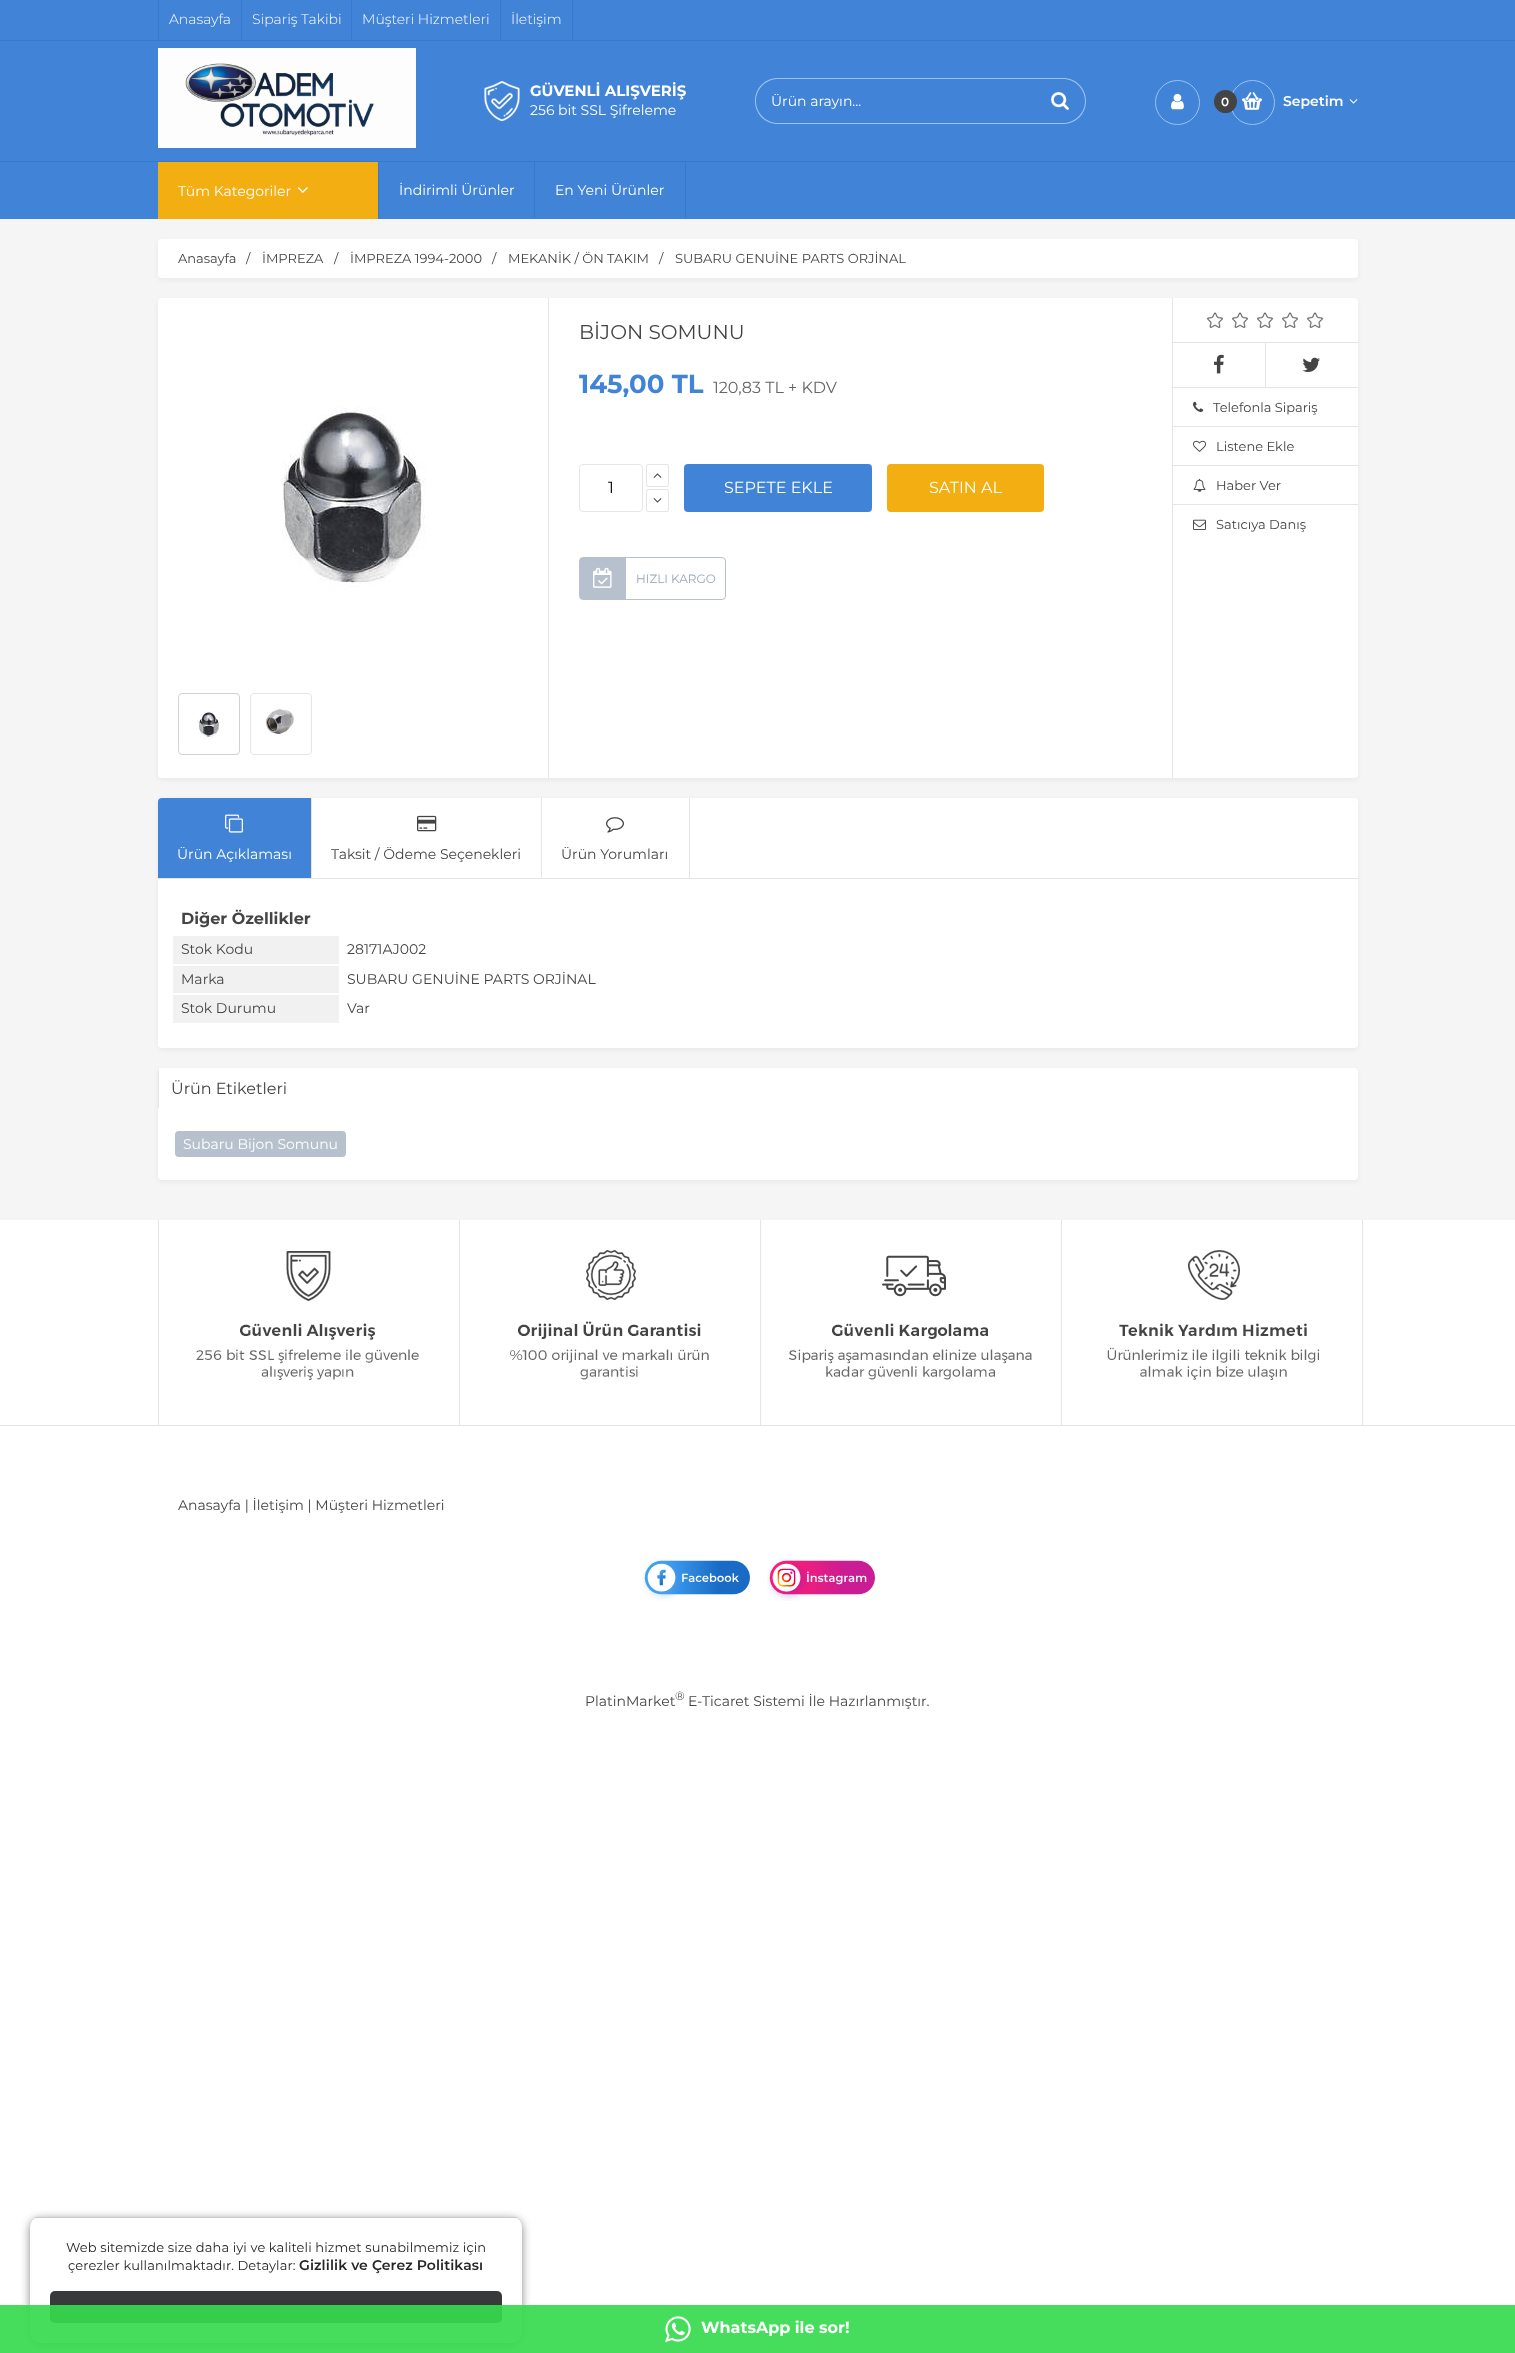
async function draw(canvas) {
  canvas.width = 1515;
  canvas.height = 2353;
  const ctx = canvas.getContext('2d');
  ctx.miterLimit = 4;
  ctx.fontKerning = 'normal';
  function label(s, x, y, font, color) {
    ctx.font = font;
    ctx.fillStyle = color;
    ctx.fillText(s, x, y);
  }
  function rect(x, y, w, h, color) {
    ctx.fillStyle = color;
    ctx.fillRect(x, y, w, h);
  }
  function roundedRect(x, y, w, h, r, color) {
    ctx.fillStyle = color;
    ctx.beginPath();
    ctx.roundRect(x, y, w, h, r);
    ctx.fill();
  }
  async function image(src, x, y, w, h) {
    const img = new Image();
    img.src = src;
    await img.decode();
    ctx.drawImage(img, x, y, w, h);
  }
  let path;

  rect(0, 0, 1515, 2353, '#fff');
  rect(0, 219, 1515, 1001, '#f5f5f5');
  rect(0, 0, 1515, 219, '#4183d7');
  rect(0, 40, 1515, 1, '#3779ce');
  rect(158, 0, 1, 40, '#3779ce');
  label('Anasayfa', 169, 24, '300 14px Montserrat', '#fff');
  rect(241, 0, 1, 40, '#3779ce');
  label('Sipariş Takibi', 252, 24, '300 14px Montserrat', '#fff');
  rect(351, 0, 1, 40, '#3779ce');
  label('Müşteri Hizmetleri', 362, 24, '300 14px Montserrat', '#fff');
  rect(572, 0, 1, 40, '#3779ce');
  rect(500, 0, 1, 40, '#3779ce');
  label('İletişim', 511, 24, '300 14px Montserrat', '#fff');
  await image('assets/img1.png', 158, 48, 258, 100);
  await image('assets/img2.png', 484, 81, 36, 40);
  label('GÜVENLİ ALIŞVERİŞ', 530, 96, 'bold 15px Montserrat', '#fff');
  label('256 bit SSL Şifreleme', 530, 115, '14px Montserrat', '#fff');
  ctx.fillStyle = '#9cc1f1';
  path = new Path2D('M778 78H1035V124H778C765 124 755 114 755 101C755 88 765 78 778 78ZM778 79H1035V123H778C766 123 756 113 756 101C756 89 766 79 778 79Z');
  ctx.fill(path, 'evenodd');
  label('Ürün arayın...', 771, 106, '14px Montserrat', '#fff');
  await image('assets/img3.png', 1051, 92, 18, 18);
  ctx.fillStyle = '#9cc1f1';
  path = new Path2D('M1035 78H1063C1076 78 1086 88 1086 101C1086 114 1076 124 1063 124H1035ZM1035 79H1063C1075 79 1085 89 1085 101C1085 113 1075 123 1063 123H1035Z');
  ctx.fill(path, 'evenodd');
  ctx.beginPath();
  ctx.arc(1177.5, 102.5, 22, 0, 2 * Math.PI);
  ctx.strokeStyle = '#9cc1f1';
  ctx.stroke();
  await image('assets/img4.png', 1171, 93, 13, 17);
  await image('assets/img5.png', 1242, 92, 20, 18);
  ctx.beginPath();
  ctx.arc(1252.5, 102.5, 22, 0, 2 * Math.PI);
  ctx.stroke();
  ctx.fillStyle = '#444';
  ctx.beginPath();
  ctx.arc(1225.5, 101.5, 11.5, 0, 2 * Math.PI);
  ctx.fill();
  label('0', 1221, 106, '600 12px Montserrat', '#fff');
  label('Sepetim', 1283, 106, '600 14px Montserrat', '#fff');
  await image('assets/img6.png', 1349, 99, 9, 5);
  rect(0, 161, 1515, 1, '#3779ce');
  rect(378, 162, 1, 57, '#3779ce');
  rect(158, 162, 220, 57, '#f3ae12');
  label('Tüm Kategoriler', 178, 196, '14px Montserrat', '#fff');
  await image('assets/img7.png', 297, 187, 11, 6);
  rect(534, 162, 1, 56, '#3779ce');
  label('İndirimli Ürünler', 399, 195, '14px Montserrat', '#fff');
  rect(685, 162, 1, 56, '#3779ce');
  label('En Yeni Ürünler', 555, 195, '14px Montserrat', '#fff');
  ctx.fillStyle = '#888';
  ctx.filter = 'blur(5px)';
  ctx.beginPath();
  ctx.roundRect(30, 2219, 492, 126, 10);
  ctx.fill();
  ctx.filter = 'none';
  roundedRect(30, 2217, 492, 126, 10, '#fff');
  rect(35, 2217, 482, 1, '#ccc');
  ctx.letterSpacing = '0.1px';
  label('Web sitemizde size daha iyi ve kaliteli hizmet sunabilmemiz için', 66, 2252, '13px Montserrat', '#262626');
  label('çerezler kullanılmaktadır. Detaylar:', 68, 2270, '13px Montserrat', '#262626');
  label('Gizlilik ve Çerez Politikası', 299, 2270, '600 14px Montserrat', '#262626');
  roundedRect(50, 2291, 452, 32, 5, '#37393b');
  ctx.fillStyle = '#0000000d';
  ctx.filter = 'blur(2.5px)';
  ctx.beginPath();
  ctx.roundRect(158, 241, 1200, 39, 4);
  ctx.fill();
  ctx.filter = 'none';
  roundedRect(158, 239, 1200, 39, 4, '#fff');
  ctx.letterSpacing = '0px';
  label('Anasayfa', 178, 263, '13px Montserrat', '#444');
  label('/', 246, 263, '13px Montserrat', '#444');
  label('İMPREZA', 262, 263, '13px Montserrat', '#444');
  label('/', 334, 263, '13px Montserrat', '#444');
  label('İMPREZA 1994-2000', 350, 263, '13px Montserrat', '#444');
  label('/', 492, 263, '13px Montserrat', '#444');
  label('MEKANİK / ÖN TAKIM', 508, 263, '13px Montserrat', '#444');
  label('/', 659, 263, '13px Montserrat', '#444');
  label('SUBARU GENUİNE PARTS ORJİNAL', 675, 263, '13px Montserrat', '#444');
  ctx.fillStyle = '#0000000d';
  ctx.filter = 'blur(2.5px)';
  ctx.beginPath();
  ctx.roundRect(158, 300, 1200, 480, 4);
  ctx.fill();
  ctx.filter = 'none';
  roundedRect(158, 298, 1200, 480, 4, '#fff');
  rect(548, 298, 1, 480, '#e5e5e5');
  await image('assets/img8.png', 282, 406, 144, 184);
  ctx.beginPath();
  ctx.roundRect(178.5, 693.5, 61, 61, 3.5);
  ctx.strokeStyle = '#d2d2d2';
  ctx.stroke();
  await image('assets/img9.png', 197, 711, 23, 28);
  ctx.beginPath();
  ctx.roundRect(250.5, 693.5, 61, 61, 3.5);
  ctx.strokeStyle = '#e5e5e5';
  ctx.stroke();
  await image('assets/img10.png', 265, 709, 29, 26);
  label('BİJON SOMUNU', 579, 339, '20px Montserrat', '#444');
  label('145,00 TL', 579, 393, 'bold 26px Montserrat', '#4183d7');
  label('120,83 TL + KDV', 713, 393, '16px Montserrat', '#666');
  ctx.beginPath();
  ctx.roundRect(579.5, 464.5, 63, 47, 3.5);
  ctx.stroke();
  label('1', 608, 493, '16px Montserrat', '#000');
  ctx.beginPath();
  ctx.roundRect(646.5, 464.5, 22, 22, 1.5);
  ctx.stroke();
  await image('assets/img11.png', 653, 473, 9, 5);
  ctx.beginPath();
  ctx.roundRect(646.5, 489.5, 22, 22, 1.5);
  ctx.stroke();
  await image('assets/img12.png', 653, 498, 9, 5);
  roundedRect(684, 464, 188, 48, 4, '#4183d7');
  label('SEPETE EKLE', 724, 493, '16px Montserrat', '#fff');
  roundedRect(887, 464, 157, 48, 4, '#f3ae12');
  label('SATIN AL', 929, 493, '16px Montserrat', '#fff');
  ctx.beginPath();
  ctx.roundRect(579.5, 557.5, 146, 42, 3.5);
  ctx.strokeStyle = '#b7c1ce';
  ctx.stroke();
  rect(580, 558, 46, 41, '#b7c1ce');
  await image('assets/img13.png', 593, 567, 19, 21);
  label('HIZLI KARGO', 636, 583, '12px Montserrat', '#98a6b7');
  rect(1172, 298, 1, 480, '#e5e5e5');
  rect(1173, 342, 185, 1, '#e5e5e5');
  await image('assets/img14.png', 1207, 312, 116, 16);
  rect(1173, 387, 185, 1, '#e5e5e5');
  rect(1265, 343, 1, 44, '#e5e5e5');
  await image('assets/img15.png', 1214, 354, 10, 20);
  await image('assets/img16.png', 1302, 357, 18, 15);
  rect(1173, 426, 185, 1, '#e5e5e5');
  await image('assets/img17.png', 1193, 401, 11, 11);
  label('Telefonla Sipariş', 1213, 412, '13px Montserrat', '#444');
  rect(1173, 465, 185, 1, '#e5e5e5');
  await image('assets/img18.png', 1193, 440, 13, 12);
  label('Listene Ekle', 1216, 451, '13px Montserrat', '#444');
  rect(1173, 504, 185, 1, '#e5e5e5');
  await image('assets/img19.png', 1193, 478, 13, 14);
  label('Haber Ver', 1216, 490, '13px Montserrat', '#444');
  await image('assets/img20.png', 1193, 519, 13, 11);
  label('Satıcıya Danış', 1216, 529, '13px Montserrat', '#444');
  ctx.fillStyle = '#0000000d';
  ctx.filter = 'blur(2.5px)';
  ctx.beginPath();
  ctx.roundRect(158, 800, 1200, 250, 4);
  ctx.fill();
  ctx.filter = 'none';
  ctx.fillStyle = '#fff';
  ctx.beginPath();
  ctx.roundRect(158, 798, 1200, 81, [4, 4, 0, 0]);
  ctx.fill();
  rect(158, 878, 1200, 1, '#e5e5e5');
  ctx.fillStyle = '#4183d7';
  ctx.beginPath();
  ctx.roundRect(158, 798, 153, 80, [4, 0, 0, 0]);
  ctx.fill();
  rect(311, 798, 1, 80, '#e5e5e5');
  await image('assets/img21.png', 225, 814, 18, 19);
  label('Ürün Açıklaması', 177, 859, '14px Montserrat', '#fff');
  rect(541, 798, 1, 80, '#e5e5e5');
  await image('assets/img22.png', 417, 815, 20, 17);
  label('Taksit / Ödeme Seçenekleri', 331, 859, '14px Montserrat', '#444');
  rect(689, 798, 1, 80, '#e5e5e5');
  await image('assets/img23.png', 606, 817, 18, 16);
  label('Ürün Yorumları', 561, 859, '14px Montserrat', '#444');
  ctx.fillStyle = '#fff';
  ctx.beginPath();
  ctx.roundRect(158, 879, 1200, 169, [0, 0, 4, 4]);
  ctx.fill();
  label('Diğer Özellikler', 181, 924, 'bold 16px Montserrat', '#444');
  rect(173, 936, 166, 28, '#f1f1f1');
  label('Stok Kodu', 181, 954, '14px Montserrat', '#444');
  label('28171AJ002', 347, 954, '14px Montserrat', '#444');
  rect(173, 966, 166, 27, '#f1f1f1');
  label('Marka', 181, 984, '14px Montserrat', '#444');
  label('SUBARU GENUİNE PARTS ORJİNAL', 347, 984, '14px Montserrat', '#444');
  rect(173, 995, 166, 28, '#f1f1f1');
  label('Stok Durumu', 181, 1013, '14px Montserrat', '#444');
  label('Var', 347, 1013, '14px Montserrat', '#444');
  ctx.fillStyle = '#0000000d';
  ctx.filter = 'blur(2.5px)';
  ctx.beginPath();
  ctx.roundRect(158, 1070, 1200, 112, 4);
  ctx.fill();
  ctx.filter = 'none';
  roundedRect(158, 1068, 1200, 112, 4, '#fff');
  rect(158, 1070, 1, 38, '#e5e5e5');
  label('Ürün Etiketleri', 171, 1094, '16px Montserrat', '#444');
  roundedRect(175, 1131, 171, 26, 4, '#b7c1ce');
  label('Subaru Bijon Somunu', 183, 1149, '14px Montserrat', '#fff');
  rect(0, 1425, 1515, 1, '#e5e5e5');
  rect(459, 1220, 1, 205, '#e5e5e5');
  rect(158, 1220, 1, 205, '#e5e5e5');
  await image('assets/img24.png', 196, 1251, 223, 129);
  rect(760, 1220, 1, 205, '#e5e5e5');
  await image('assets/img25.png', 510, 1250, 199, 130);
  rect(1061, 1220, 1, 205, '#e5e5e5');
  await image('assets/img26.png', 789, 1255, 243, 125);
  rect(1362, 1220, 1, 205, '#e5e5e5');
  await image('assets/img27.png', 1107, 1250, 213, 130);
  label('Anasayfa | İletişim | Müşteri Hizmetleri', 178, 1510, '14px Montserrat', '#444');
  await image('assets/img28.png', 642, 1558, 108, 43);
  await image('assets/img29.png', 767, 1558, 108, 43);
  rect(0, 2305, 1515, 48, '#36da4eeb');
  await image('assets/img30.png', 665, 2316, 26, 27);
  label('WhatsApp ile sor!', 701, 2333, 'bold 16px Montserrat', '#fff');
  label('PlatinMarket', 585, 1706, '14px Montserrat', '#444');
  label('®', 675, 1700, '12px Montserrat', '#444');
  label('E-Ticaret Sistemi İle Hazırlanmıştır.', 688, 1706, '14px Montserrat', '#444');
}

draw(document.querySelector('canvas'));
